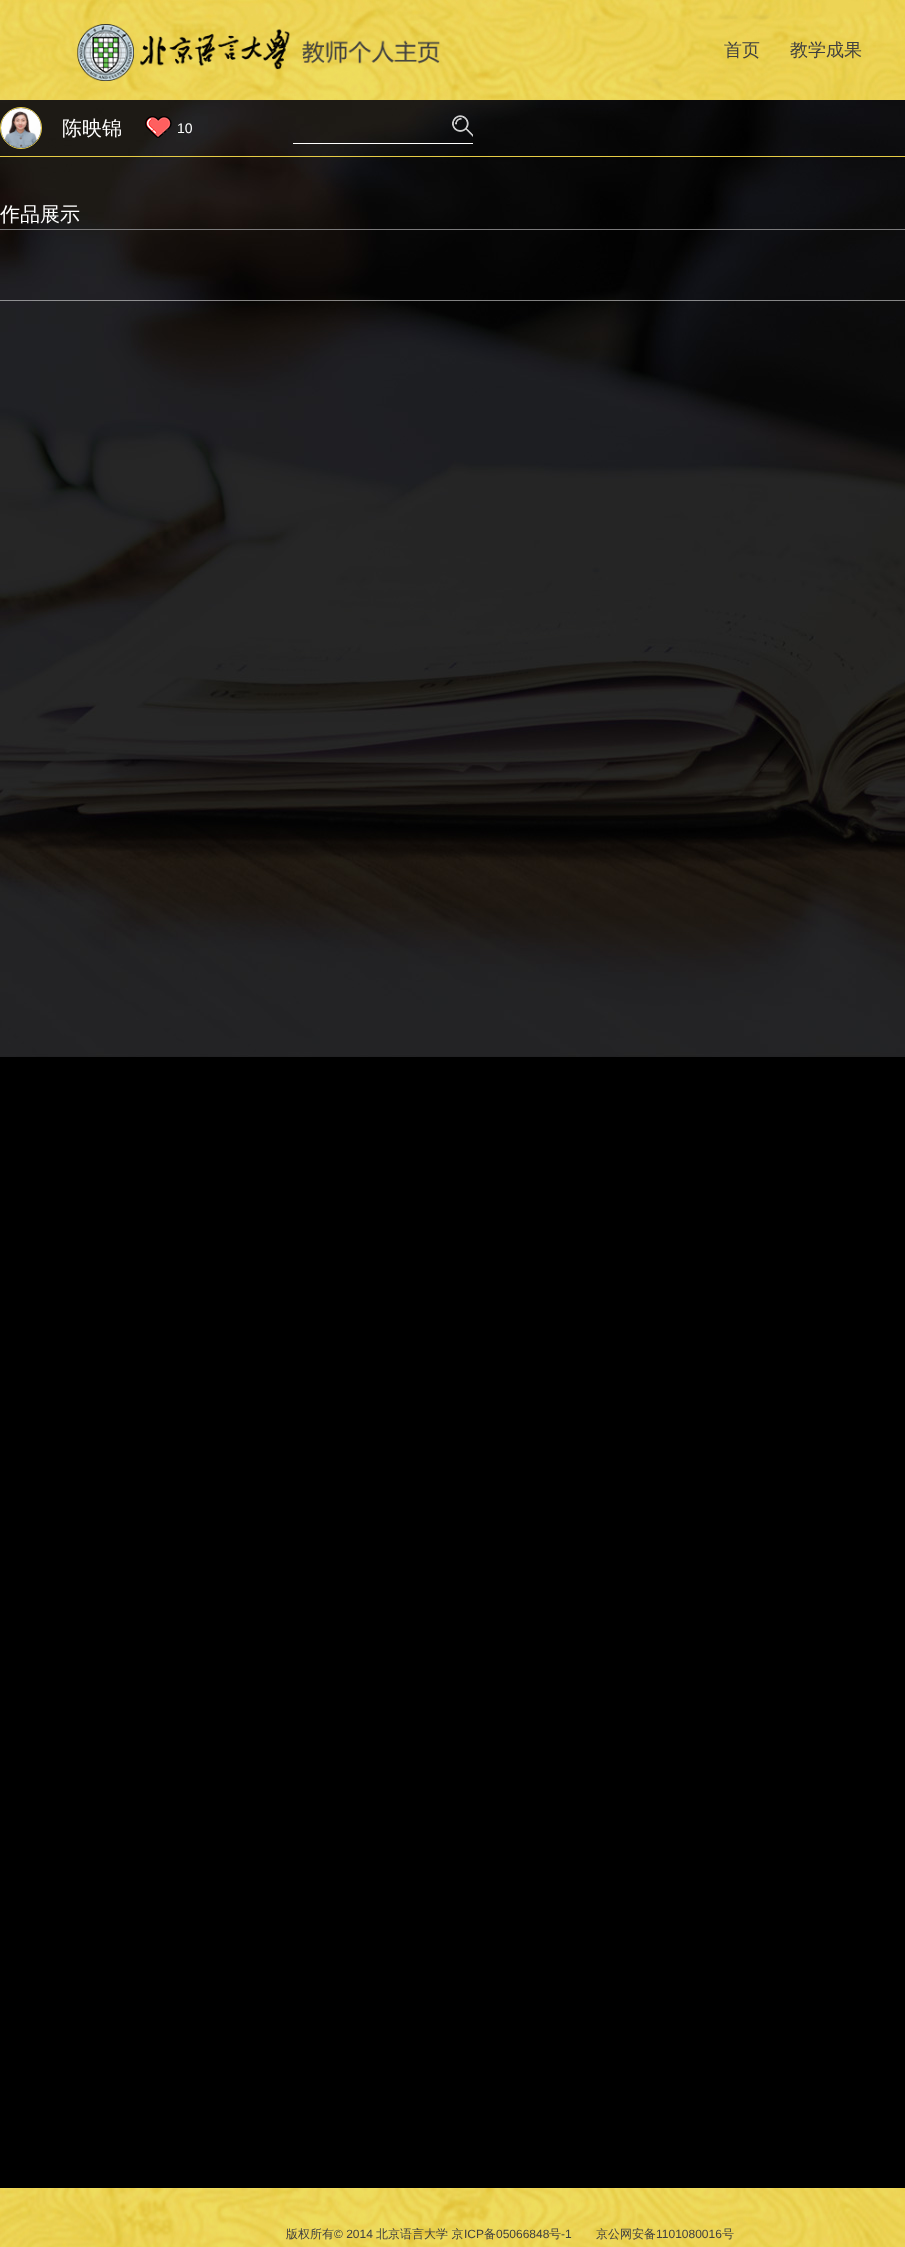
async function draw(canvas) {
  canvas.width = 905;
  canvas.height = 2247;
  const ctx = canvas.getContext('2d');
  ctx.miterLimit = 4;
  ctx.fontKerning = 'normal';
  function label(s, x, y, font, color) {
    ctx.font = font;
    ctx.fillStyle = color;
    ctx.fillText(s, x, y);
  }
  function rect(x, y, w, h, color) {
    ctx.fillStyle = color;
    ctx.fillRect(x, y, w, h);
  }
  async function image(src, x, y, w, h) {
    const img = new Image();
    img.src = src;
    await img.decode();
    ctx.drawImage(img, x, y, w, h);
  }

  rect(0, 0, 905, 2247, '#000');
  await image('assets/img1.png', 0, 0, 905, 100);
  await image('assets/img2.png', 77, 24, 363, 57);
  label('首页', 724, 56, '500 18px WenQuanYi Zen Hei', '#404040');
  label('教学成果', 790, 56, '500 18px WenQuanYi Zen Hei', '#404040');
  await image('assets/img3.png', 0, 100, 905, 957);
  rect(0, 156, 905, 1, '#e6cc46');
  ctx.beginPath();
  ctx.arc(21, 128, 20.5, 0, 2 * Math.PI);
  ctx.strokeStyle = '#e6cc46';
  ctx.stroke();
  await image('assets/img4.png', 1, 108, 40, 40);
  label('陈映锦', 62, 135, '500 20px WenQuanYi Zen Hei', '#fff');
  await image('assets/img5.png', 145, 116, 27, 22);
  label('10', 177, 133, '14px Liberation Sans', '#fff');
  rect(293, 143, 180, 1, '#fff');
  await image('assets/img6.png', 452, 115, 21, 22);
  rect(0, 229, 905, 1, '#7b7a7b');
  label('作品展示', 0, 221, '500 20px WenQuanYi Zen Hei', '#fff');
  rect(0, 300, 905, 1, '#ffffff80');
  await image('assets/img7.png', 0, 2188, 905, 59);
  label('版权所有', 286, 2238, '500 12px WenQuanYi Zen Hei', '#404040');
  label('© 2014', 334, 2238, '12px Liberation Sans', '#404040');
  label('北京语言大学 京', 376, 2238, '500 12px WenQuanYi Zen Hei', '#404040');
  label('ICP', 464, 2238, '12px Liberation Sans', '#404040');
  label('备', 484, 2238, '500 12px WenQuanYi Zen Hei', '#404040');
  label('05066848', 496, 2238, '12px Liberation Sans', '#404040');
  label('号', 549, 2238, '500 12px WenQuanYi Zen Hei', '#404040');
  label('-1', 561, 2238, '12px Liberation Sans', '#404040');
  label('京公网安备', 596, 2238, '500 12px WenQuanYi Zen Hei', '#404040');
  label('1101080016', 656, 2238, '12px Liberation Sans', '#404040');
  label('号', 722, 2238, '500 12px WenQuanYi Zen Hei', '#404040');
}

draw(document.querySelector('canvas'));
